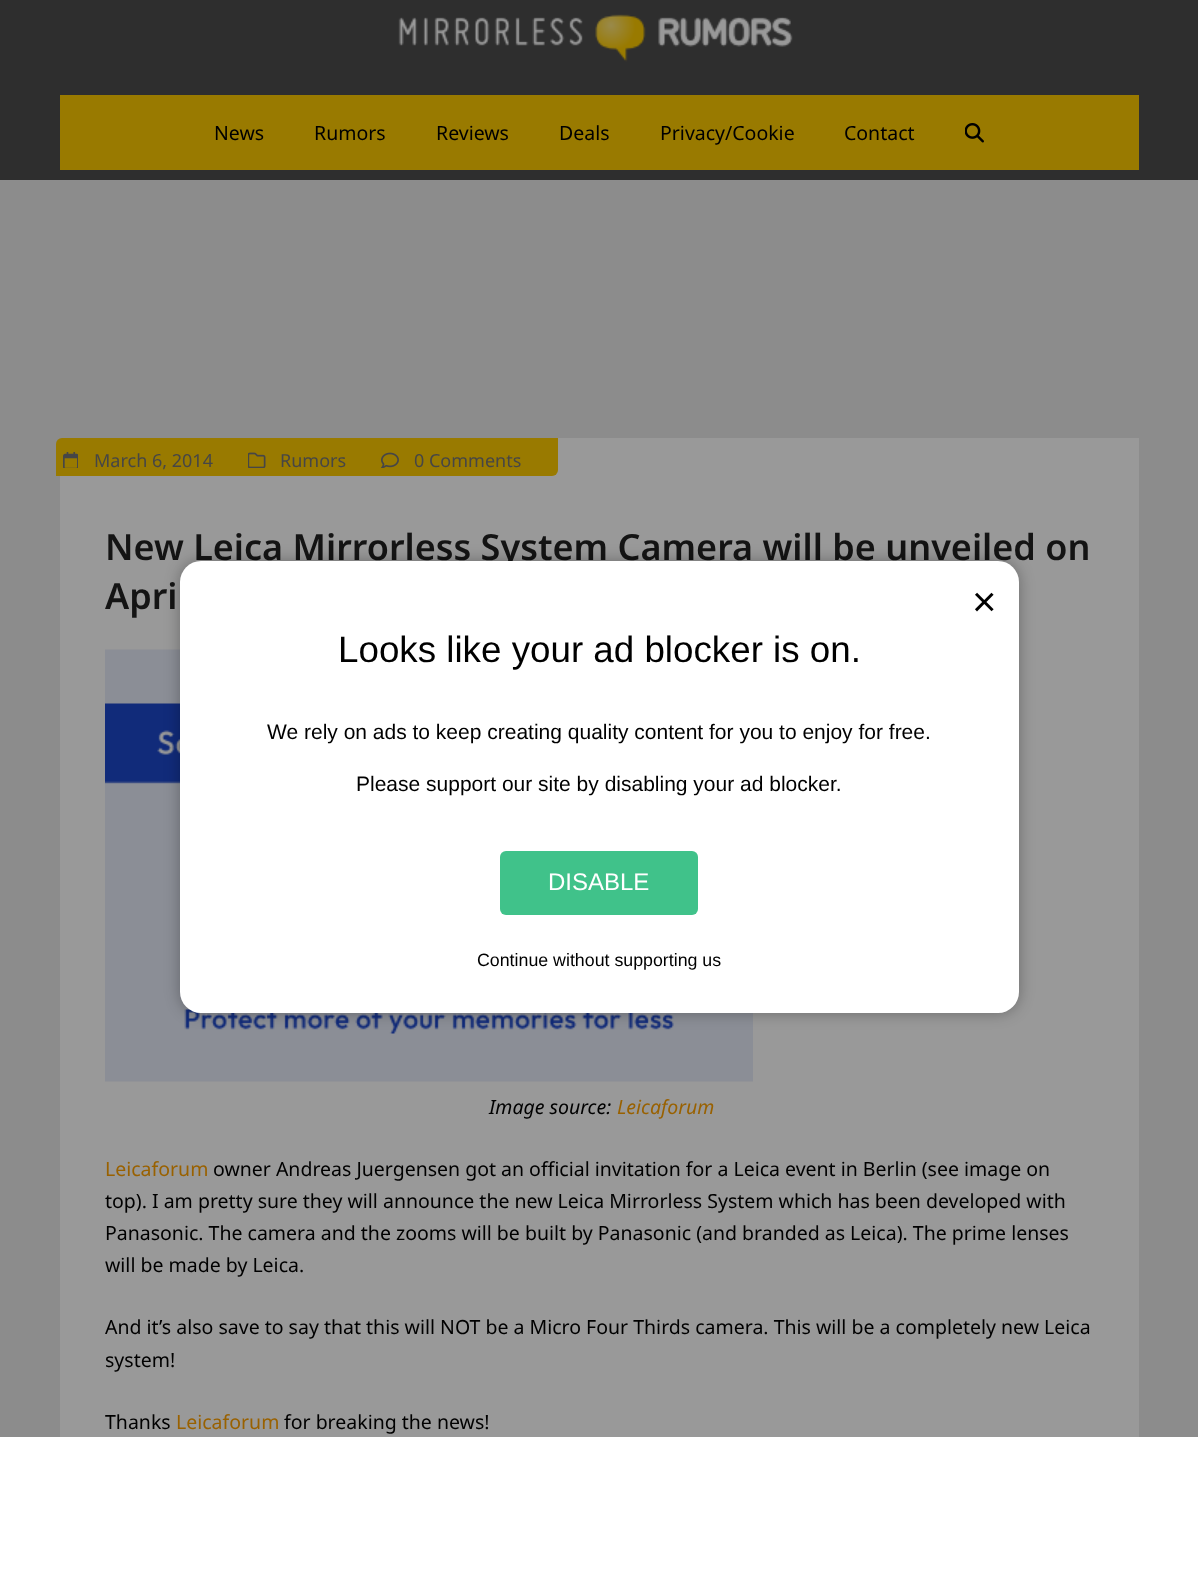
async function draw(canvas) {
  canvas.width = 1198;
  canvas.height = 1571;
  const ctx = canvas.getContext('2d');
  ctx.miterLimit = 4;
  ctx.fontKerning = 'normal';
  function label(s, x, y, font, color) {
    ctx.font = font;
    ctx.fillStyle = color;
    ctx.fillText(s, x, y);
  }
  function rect(x, y, w, h, color) {
    ctx.fillStyle = color;
    ctx.fillRect(x, y, w, h);
  }
  function roundedRect(x, y, w, h, r, color) {
    ctx.fillStyle = color;
    ctx.beginPath();
    ctx.roundRect(x, y, w, h, r);
    ctx.fill();
  }
  async function image(src, x, y, w, h) {
    const img = new Image();
    img.src = src;
    await img.decode();
    ctx.drawImage(img, x, y, w, h);
  }
  let path;

  rect(0, 0, 1198, 1571, '#8c8c8c');
  rect(0, 0, 1198, 180, '#2e2e2e');
  await image('assets/img1.png', 398, 14, 395, 48);
  rect(60, 95, 1079, 75, '#997a00');
  label('News', 214, 140, '19.5px Noto Sans', '#000');
  label('Rumors', 314, 140, '19.5px Noto Sans', '#000');
  label('Reviews', 436, 140, '19.5px Noto Sans', '#000');
  label('Deals', 559, 140, '19.5px Noto Sans', '#000');
  label('Privacy/Cookie', 660, 140, '19.5px Noto Sans', '#000');
  label('Contact', 844, 140, '19.5px Noto Sans', '#000');
  await image('assets/img2.png', 965, 123, 19, 20);
  ctx.fillStyle = '#999';
  path = new Path2D('M66 438H1139V1571C1139 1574.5 1136.5 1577 1133 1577H60V444C60 440.5 62.5 438 66 438Z');
  ctx.fill(path);
  ctx.fillStyle = '#997a00';
  ctx.beginPath();
  ctx.roundRect(56, 438, 502, 38, [6, 0, 6, 0]);
  ctx.fill();
  await image('assets/img3.png', 63, 452, 15, 16);
  label('March 6, 2014', 94, 467, '18px Noto Sans', '#464646');
  await image('assets/img4.png', 248, 452, 18, 16);
  label('Rumors', 280, 467, '18px Noto Sans', '#464646');
  await image('assets/img5.png', 381, 452, 18, 16);
  label('0 Comments', 414, 467, '18px Noto Sans', '#464646');
  label('New Leica Mirrorless System Camera will be unveiled on', 105, 560, '600 36px Noto Sans', '#141414');
  label('Apri', 105, 609, '600 36px Noto Sans', '#141414');
  await image('assets/img6.png', 105, 649, 648, 433);
  label('Image source:', 489, 1114, 'italic 19.5px Noto Sans', '#000');
  label('Leicaforum', 617, 1114, 'italic 19.5px Noto Sans', '#996100');
  label('Leicaforum', 105, 1176, '19.5px Noto Sans', '#996100');
  label('owner Andreas Juergensen got an official invitation for a Leica event in Berlin (see image on', 213, 1176, '19.5px Noto Sans', '#000');
  label('top). I am pretty sure they will announce the new Leica Mirrorless System which has been developed with', 105, 1208, '19.5px Noto Sans', '#000');
  label('Panasonic. The camera and the zooms will be built by Panasonic (and branded as Leica). The prime lenses', 105, 1240, '19.5px Noto Sans', '#000');
  label('will be made by Leica.', 105, 1272, '19.5px Noto Sans', '#000');
  label('And it’s also save to say that this will NOT be a Micro Four Thirds camera. This will be a completely new Leica', 105, 1334, '19.5px Noto Sans', '#000');
  label('system!', 105, 1367, '19.5px Noto Sans', '#000');
  label('Thanks', 105, 1429, '19.5px Noto Sans', '#000');
  label('Leicaforum', 176, 1429, '19.5px Noto Sans', '#996100');
  label('for breaking the news!', 284, 1429, '19.5px Noto Sans', '#000');
  ctx.fillStyle = '#0000004d';
  ctx.filter = 'blur(7.5px)';
  ctx.beginPath();
  ctx.roundRect(180, 561, 839, 452, 21);
  ctx.fill();
  ctx.filter = 'none';
  roundedRect(180, 561, 839, 452, 21, '#fff');
  label('×', 972, 616, '42px Liberation Sans', '#000');
  label('Looks like your ad blocker is on.', 338, 662, '36.75px Liberation Sans', '#000');
  label('We rely on ads to keep creating quality content for you to enjoy for free.', 267, 739, '21px Liberation Sans', '#000');
  label('Please support our site by disabling your ad blocker.', 356, 791, '21px Liberation Sans', '#000');
  roundedRect(500, 851, 198, 64, 6, '#40c28a');
  label('DISABLE', 548, 890, '24px Liberation Sans', '#fff');
  label('Continue without supporting us', 477, 966, '17.8px Liberation Sans', '#000');
  rect(0, 1437, 1198, 134, '#fff');
}

draw(document.querySelector('canvas'));
